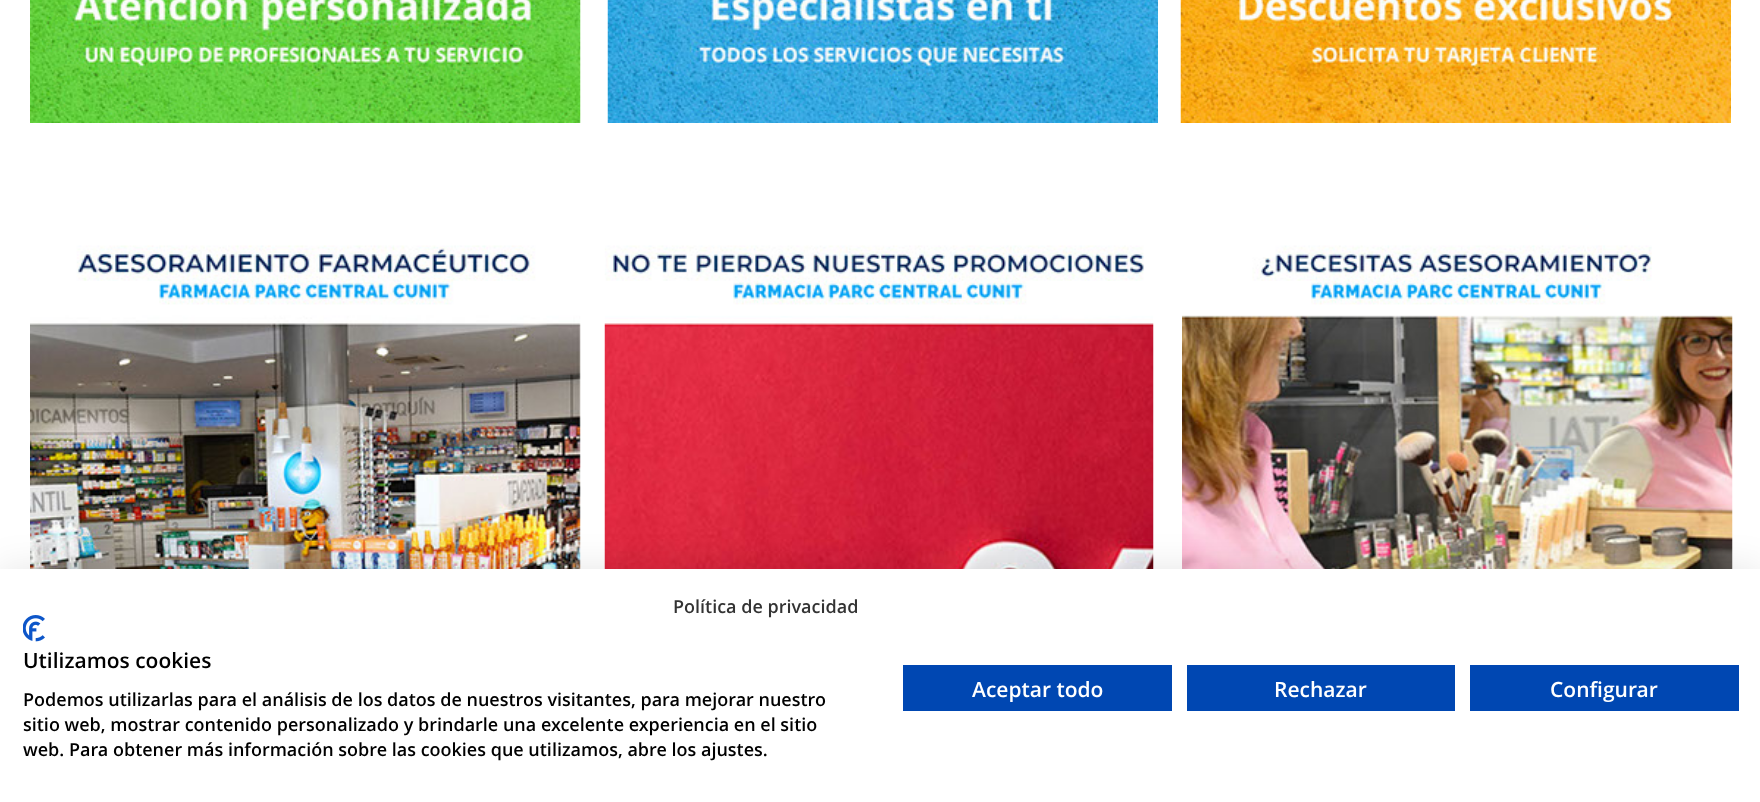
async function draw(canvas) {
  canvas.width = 1760;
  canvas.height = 802;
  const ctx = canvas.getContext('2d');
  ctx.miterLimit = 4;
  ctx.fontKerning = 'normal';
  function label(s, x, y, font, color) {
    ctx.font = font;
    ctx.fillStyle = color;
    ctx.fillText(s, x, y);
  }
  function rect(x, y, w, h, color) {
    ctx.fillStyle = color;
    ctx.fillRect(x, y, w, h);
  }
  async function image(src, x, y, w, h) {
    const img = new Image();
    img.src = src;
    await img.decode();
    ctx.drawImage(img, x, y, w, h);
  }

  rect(0, 0, 1760, 802, '#fff');
  await image('assets/img1.png', 30, 0, 551, 123);
  await image('assets/img2.png', 607, 0, 551, 123);
  await image('assets/img3.png', 1180, 0, 551, 123);
  await image('assets/img4.png', 30, 245, 551, 324);
  await image('assets/img5.png', 604, 245, 550, 324);
  await image('assets/img6.png', 1182, 245, 551, 324);
  ctx.fillStyle = '#0000001a';
  ctx.filter = 'blur(18px)';
  ctx.beginPath();
  ctx.rect(0, 569, 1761, 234);
  ctx.fill();
  ctx.filter = 'none';
  rect(0, 569, 1760, 233, '#fff');
  label('Política de privacidad', 673, 613, '600 18px Open Sans', '#333');
  await image('assets/img7.png', 23, 615, 22, 27);
  label('Utilizamos cookies', 23, 668, '600 21px Open Sans', '#000');
  label('Podemos utilizarlas para el análisis de los datos de nuestros visitantes, para mejorar nuestro', 23, 706, '600 18px Open Sans', '#000');
  label('sitio web, mostrar contenido personalizado y brindarle una excelente experiencia en el sitio', 23, 731, '600 18px Open Sans', '#000');
  label('web. Para obtener más información sobre las cookies que utilizamos, abre los ajustes.', 23, 756, '600 18px Open Sans', '#000');
  rect(903, 665, 269, 46, '#0047b2');
  label('Aceptar todo', 972, 697, '600 21px Open Sans', '#fff');
  rect(1187, 665, 268, 46, '#0047b2');
  label('Rechazar', 1274, 697, '600 21px Open Sans', '#fff');
  rect(1470, 665, 269, 46, '#0047b2');
  label('Configurar', 1550, 697, '600 21px Open Sans', '#fff');
}

draw(document.querySelector('canvas'));
